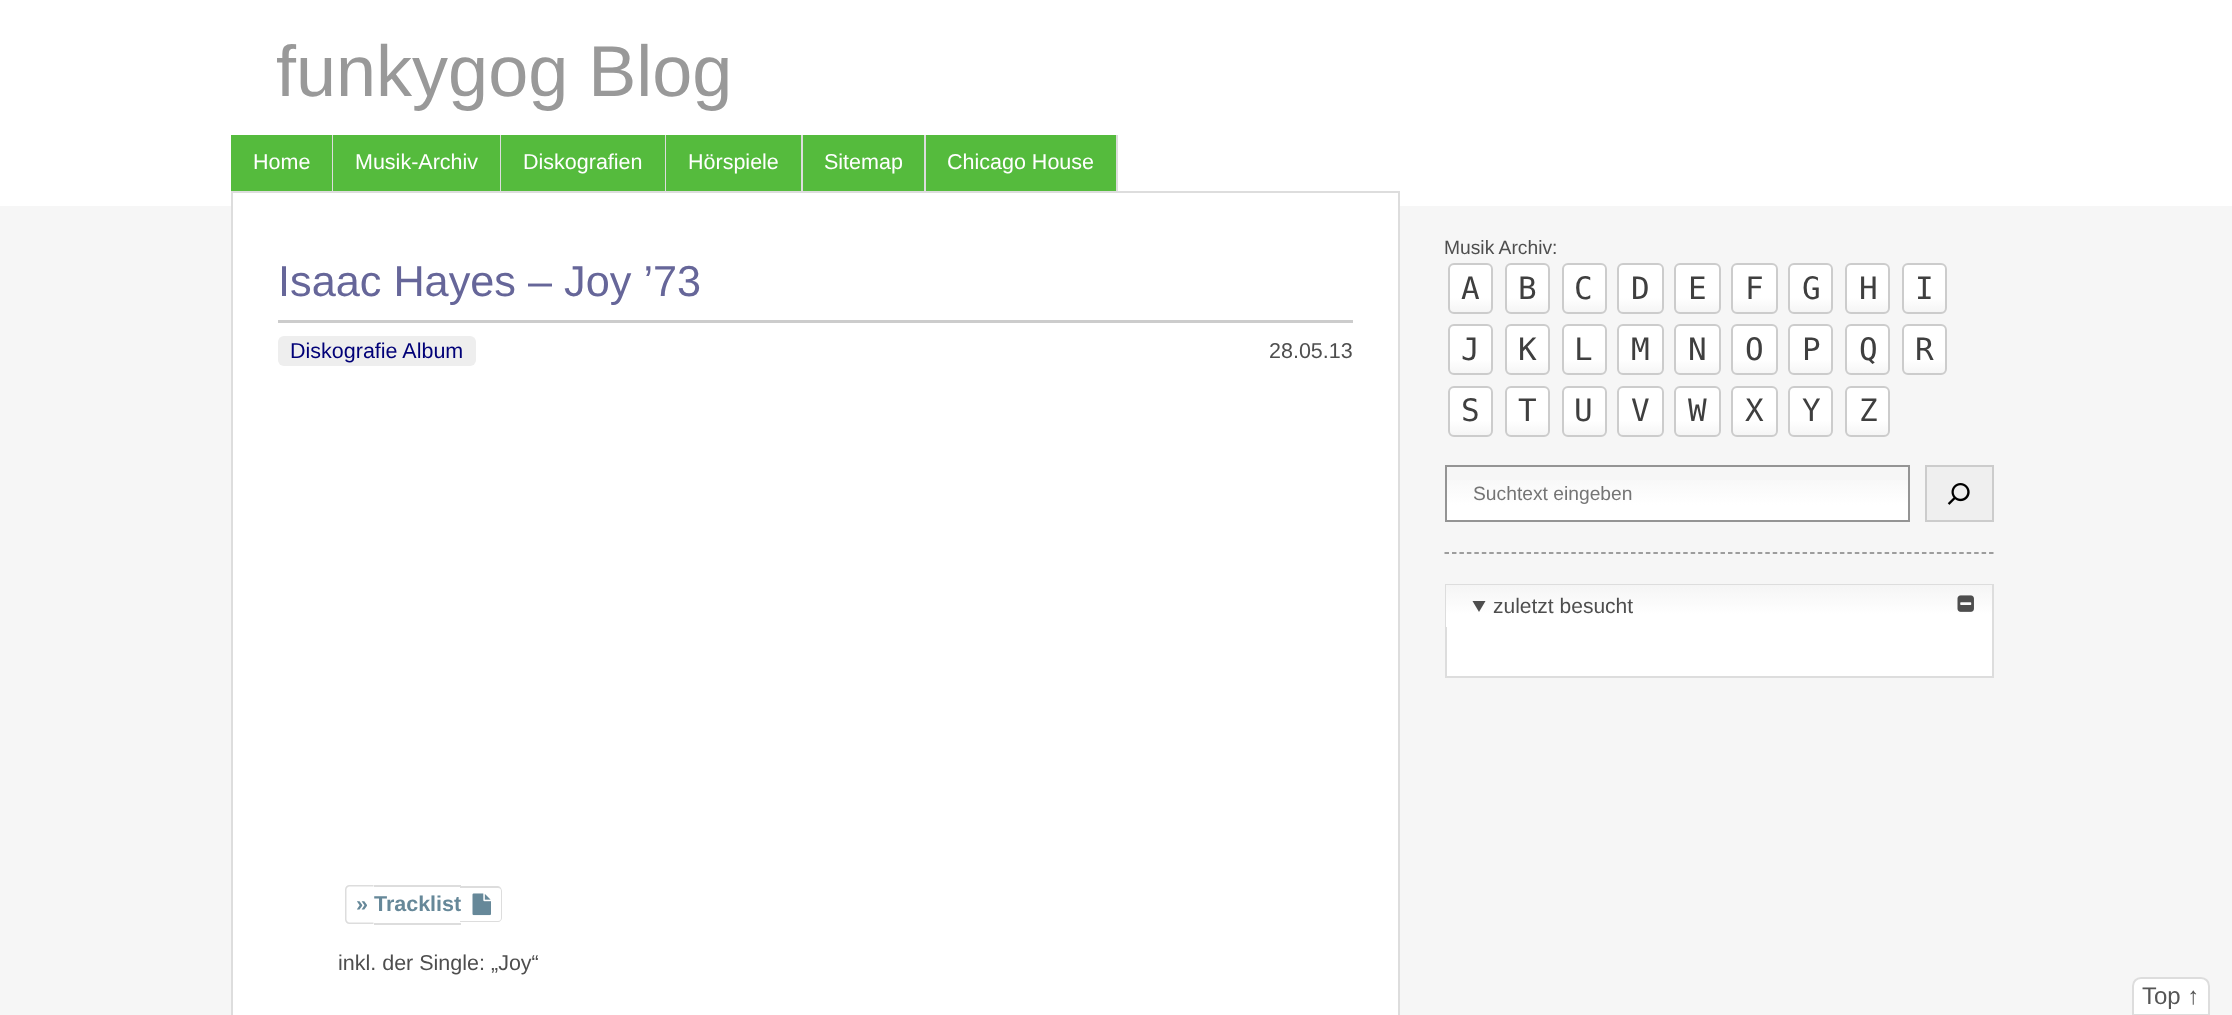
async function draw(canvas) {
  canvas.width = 2232;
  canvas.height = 1015;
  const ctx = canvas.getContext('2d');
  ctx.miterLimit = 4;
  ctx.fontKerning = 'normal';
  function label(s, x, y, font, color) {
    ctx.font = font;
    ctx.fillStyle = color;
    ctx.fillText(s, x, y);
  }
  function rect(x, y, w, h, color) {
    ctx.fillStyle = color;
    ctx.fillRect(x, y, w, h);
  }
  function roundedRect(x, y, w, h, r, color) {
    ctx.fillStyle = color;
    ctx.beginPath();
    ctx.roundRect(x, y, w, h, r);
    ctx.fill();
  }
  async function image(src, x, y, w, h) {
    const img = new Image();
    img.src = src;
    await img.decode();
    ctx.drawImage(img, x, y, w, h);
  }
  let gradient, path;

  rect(0, 0, 2232, 1015, '#f6f6f6');
  rect(0, 0, 2232, 206, '#fff');
  label('funkygog Blog', 276, 96, '72px Liberation Sans', '#999');
  rect(231, 135, 101, 56, '#55bb3d');
  rect(332, 135, 1, 56, '#ddd');
  label('Home', 253, 169, '21.5px Liberation Sans', '#fff');
  rect(333, 135, 167, 56, '#55bb3d');
  rect(500, 135, 1, 56, '#ddd');
  label('Musik-Archiv', 355, 169, '21.5px Liberation Sans', '#fff');
  rect(501, 135, 164, 56, '#55bb3d');
  rect(665, 135, 1, 56, '#ddd');
  label('Diskografien', 523, 169, '21.5px Liberation Sans', '#fff');
  rect(666, 135, 135, 56, '#55bb3d');
  rect(801, 135, 2, 56, '#ddd');
  label('Hörspiele', 688, 169, '21.5px Liberation Sans', '#fff');
  rect(803, 135, 121, 56, '#55bb3d');
  rect(924, 135, 2, 56, '#ddd');
  label('Sitemap', 824, 169, '21.5px Liberation Sans', '#fff');
  rect(926, 135, 190, 56, '#55bb3d');
  rect(1116, 135, 2, 56, '#ddd');
  label('Chicago House', 947, 169, '21.5px Liberation Sans', '#fff');
  rect(233, 206, 1165, 809, '#fff');
  ctx.strokeStyle = '#ddd';
  ctx.lineWidth = 2;
  ctx.strokeRect(232, 192, 1167, 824);
  rect(278, 320, 1075, 3, '#ccc');
  label('Isaac Hayes – Joy ’73', 278, 296, '43.25px Liberation Sans', '#669');
  roundedRect(278, 336, 198, 30, 6, '#eee');
  label('Diskografie Album', 290, 358, '21.5px Liberation Sans', '#007');
  label('28.05.13', 1269, 358, '21.5px Liberation Sans', '#4e4e4e');
  ctx.fillStyle = '#ddd';
  path = new Path2D('M349.5 885H373.5V924H349.5C347 924 345 922 345 919.5V889.5C345 887 347 885 349.5 885ZM349.5 886.5H373.5V922.5H349.5C348 922.5 346.5 921 346.5 919.5V889.5C346.5 888 348 886.5 349.5 886.5Z');
  ctx.fill(path, 'evenodd');
  rect(374, 885, 87, 2, '#ddd');
  path = new Path2D('M460 886H498C500 886 502 889 502 891V918C502 920 500 922 498 922H460ZM460 888H498C500 888 501 889 501 891V918C501 920 500 921 498 921H460Z');
  ctx.fill(path, 'evenodd');
  label('» Tracklist', 356, 911, 'bold 21.5px Liberation Sans', '#689');
  rect(374, 923, 87, 2, '#ddd');
  await image('assets/img1.png', 472, 893, 19, 23);
  label('inkl. der Single: „Joy“', 338, 970, '21.5px Liberation Sans', '#4e4e4e');
  label('Musik Archiv:', 1444, 254, '19.25px Liberation Sans', '#4e4e4e');
  ctx.save();
  ctx.beginPath();
  ctx.roundRect(1448, 263, 45, 51, 6);
  ctx.clip();
  gradient = ctx.createLinearGradient(1470, 264, 1470, 312);
  gradient.addColorStop(0.7, '#fff');
  gradient.addColorStop(1, '#f5f5f5');
  ctx.fillStyle = gradient;
  ctx.fillRect(1448, 264, 45, 48);
  ctx.restore();
  ctx.beginPath();
  ctx.roundRect(1449, 264, 43, 49, 5);
  ctx.strokeStyle = '#ccc';
  ctx.stroke();
  label('A', 1461, 299, '31px DejaVu Sans Mono', '#3f3f3f');
  ctx.save();
  ctx.beginPath();
  ctx.roundRect(1505, 263, 45, 51, 6);
  ctx.clip();
  gradient = ctx.createLinearGradient(1527, 264, 1527, 312);
  gradient.addColorStop(0.7, '#fff');
  gradient.addColorStop(1, '#f5f5f5');
  ctx.fillStyle = gradient;
  ctx.fillRect(1505, 264, 45, 48);
  ctx.restore();
  ctx.beginPath();
  ctx.roundRect(1506, 264, 43, 49, 5);
  ctx.stroke();
  label('B', 1518, 299, '31px DejaVu Sans Mono', '#3f3f3f');
  ctx.save();
  ctx.beginPath();
  ctx.roundRect(1562, 263, 45, 51, 6);
  ctx.clip();
  gradient = ctx.createLinearGradient(1584, 264, 1584, 312);
  gradient.addColorStop(0.7, '#fff');
  gradient.addColorStop(1, '#f5f5f5');
  ctx.fillStyle = gradient;
  ctx.fillRect(1562, 264, 45, 48);
  ctx.restore();
  ctx.beginPath();
  ctx.roundRect(1563, 264, 43, 49, 5);
  ctx.stroke();
  label('C', 1574, 299, '31px DejaVu Sans Mono', '#3f3f3f');
  ctx.save();
  ctx.beginPath();
  ctx.roundRect(1617, 263, 47, 51, 6);
  ctx.clip();
  gradient = ctx.createLinearGradient(1640, 264, 1640, 312);
  gradient.addColorStop(0.7, '#fff');
  gradient.addColorStop(1, '#f5f5f5');
  ctx.fillStyle = gradient;
  ctx.fillRect(1617, 264, 47, 48);
  ctx.restore();
  ctx.beginPath();
  ctx.roundRect(1618, 264, 45, 49, 5);
  ctx.stroke();
  label('D', 1631, 299, '31px DejaVu Sans Mono', '#3f3f3f');
  ctx.save();
  ctx.beginPath();
  ctx.roundRect(1674, 263, 47, 51, 6);
  ctx.clip();
  gradient = ctx.createLinearGradient(1697, 264, 1697, 312);
  gradient.addColorStop(0.7, '#fff');
  gradient.addColorStop(1, '#f5f5f5');
  ctx.fillStyle = gradient;
  ctx.fillRect(1674, 264, 47, 48);
  ctx.restore();
  ctx.beginPath();
  ctx.roundRect(1675, 264, 45, 49, 5);
  ctx.stroke();
  label('E', 1688, 299, '31px DejaVu Sans Mono', '#3f3f3f');
  ctx.save();
  ctx.beginPath();
  ctx.roundRect(1731, 263, 47, 51, 6);
  ctx.clip();
  gradient = ctx.createLinearGradient(1754, 264, 1754, 312);
  gradient.addColorStop(0.7, '#fff');
  gradient.addColorStop(1, '#f5f5f5');
  ctx.fillStyle = gradient;
  ctx.fillRect(1731, 264, 47, 48);
  ctx.restore();
  ctx.beginPath();
  ctx.roundRect(1732, 264, 45, 49, 5);
  ctx.stroke();
  label('F', 1745, 299, '31px DejaVu Sans Mono', '#3f3f3f');
  ctx.save();
  ctx.beginPath();
  ctx.roundRect(1788, 263, 45, 51, 6);
  ctx.clip();
  gradient = ctx.createLinearGradient(1811, 264, 1811, 312);
  gradient.addColorStop(0.7, '#fff');
  gradient.addColorStop(1, '#f5f5f5');
  ctx.fillStyle = gradient;
  ctx.fillRect(1788, 264, 45, 48);
  ctx.restore();
  ctx.beginPath();
  ctx.roundRect(1789, 264, 43, 49, 5);
  ctx.stroke();
  label('G', 1802, 299, '31px DejaVu Sans Mono', '#3f3f3f');
  ctx.save();
  ctx.beginPath();
  ctx.roundRect(1845, 263, 45, 51, 6);
  ctx.clip();
  gradient = ctx.createLinearGradient(1868, 264, 1868, 312);
  gradient.addColorStop(0.7, '#fff');
  gradient.addColorStop(1, '#f5f5f5');
  ctx.fillStyle = gradient;
  ctx.fillRect(1845, 264, 45, 48);
  ctx.restore();
  ctx.beginPath();
  ctx.roundRect(1846, 264, 43, 49, 5);
  ctx.stroke();
  label('H', 1859, 299, '31px DejaVu Sans Mono', '#3f3f3f');
  ctx.save();
  ctx.beginPath();
  ctx.roundRect(1902, 263, 45, 51, 6);
  ctx.clip();
  gradient = ctx.createLinearGradient(1925, 264, 1925, 312);
  gradient.addColorStop(0.7, '#fff');
  gradient.addColorStop(1, '#f5f5f5');
  ctx.fillStyle = gradient;
  ctx.fillRect(1902, 264, 45, 48);
  ctx.restore();
  ctx.beginPath();
  ctx.roundRect(1903, 264, 43, 49, 5);
  ctx.stroke();
  label('I', 1915, 299, '31px DejaVu Sans Mono', '#3f3f3f');
  ctx.save();
  ctx.beginPath();
  ctx.roundRect(1448, 324, 45, 51, 6);
  ctx.clip();
  gradient = ctx.createLinearGradient(1470, 326, 1470, 374);
  gradient.addColorStop(0.7, '#fff');
  gradient.addColorStop(1, '#f5f5f5');
  ctx.fillStyle = gradient;
  ctx.fillRect(1448, 326, 45, 48);
  ctx.restore();
  ctx.beginPath();
  ctx.roundRect(1449, 325, 43, 49, 5);
  ctx.stroke();
  label('J', 1461, 360, '31px DejaVu Sans Mono', '#3f3f3f');
  ctx.save();
  ctx.beginPath();
  ctx.roundRect(1505, 324, 45, 51, 6);
  ctx.clip();
  gradient = ctx.createLinearGradient(1527, 326, 1527, 374);
  gradient.addColorStop(0.7, '#fff');
  gradient.addColorStop(1, '#f5f5f5');
  ctx.fillStyle = gradient;
  ctx.fillRect(1505, 326, 45, 48);
  ctx.restore();
  ctx.beginPath();
  ctx.roundRect(1506, 325, 43, 49, 5);
  ctx.stroke();
  label('K', 1518, 360, '31px DejaVu Sans Mono', '#3f3f3f');
  ctx.save();
  ctx.beginPath();
  ctx.roundRect(1562, 324, 45, 51, 6);
  ctx.clip();
  gradient = ctx.createLinearGradient(1584, 326, 1584, 374);
  gradient.addColorStop(0.7, '#fff');
  gradient.addColorStop(1, '#f5f5f5');
  ctx.fillStyle = gradient;
  ctx.fillRect(1562, 326, 45, 48);
  ctx.restore();
  ctx.beginPath();
  ctx.roundRect(1563, 325, 43, 49, 5);
  ctx.stroke();
  label('L', 1574, 360, '31px DejaVu Sans Mono', '#3f3f3f');
  ctx.save();
  ctx.beginPath();
  ctx.roundRect(1617, 324, 47, 51, 6);
  ctx.clip();
  gradient = ctx.createLinearGradient(1640, 326, 1640, 374);
  gradient.addColorStop(0.7, '#fff');
  gradient.addColorStop(1, '#f5f5f5');
  ctx.fillStyle = gradient;
  ctx.fillRect(1617, 326, 47, 48);
  ctx.restore();
  ctx.beginPath();
  ctx.roundRect(1618, 325, 45, 49, 5);
  ctx.stroke();
  label('M', 1631, 360, '31px DejaVu Sans Mono', '#3f3f3f');
  ctx.save();
  ctx.beginPath();
  ctx.roundRect(1674, 324, 47, 51, 6);
  ctx.clip();
  gradient = ctx.createLinearGradient(1697, 326, 1697, 374);
  gradient.addColorStop(0.7, '#fff');
  gradient.addColorStop(1, '#f5f5f5');
  ctx.fillStyle = gradient;
  ctx.fillRect(1674, 326, 47, 48);
  ctx.restore();
  ctx.beginPath();
  ctx.roundRect(1675, 325, 45, 49, 5);
  ctx.stroke();
  label('N', 1688, 360, '31px DejaVu Sans Mono', '#3f3f3f');
  ctx.save();
  ctx.beginPath();
  ctx.roundRect(1731, 324, 47, 51, 6);
  ctx.clip();
  gradient = ctx.createLinearGradient(1754, 326, 1754, 374);
  gradient.addColorStop(0.7, '#fff');
  gradient.addColorStop(1, '#f5f5f5');
  ctx.fillStyle = gradient;
  ctx.fillRect(1731, 326, 47, 48);
  ctx.restore();
  ctx.beginPath();
  ctx.roundRect(1732, 325, 45, 49, 5);
  ctx.stroke();
  label('O', 1745, 360, '31px DejaVu Sans Mono', '#3f3f3f');
  ctx.save();
  ctx.beginPath();
  ctx.roundRect(1788, 324, 45, 51, 6);
  ctx.clip();
  gradient = ctx.createLinearGradient(1811, 326, 1811, 374);
  gradient.addColorStop(0.7, '#fff');
  gradient.addColorStop(1, '#f5f5f5');
  ctx.fillStyle = gradient;
  ctx.fillRect(1788, 326, 45, 48);
  ctx.restore();
  ctx.beginPath();
  ctx.roundRect(1789, 325, 43, 49, 5);
  ctx.stroke();
  label('P', 1802, 360, '31px DejaVu Sans Mono', '#3f3f3f');
  ctx.save();
  ctx.beginPath();
  ctx.roundRect(1845, 324, 45, 51, 6);
  ctx.clip();
  gradient = ctx.createLinearGradient(1868, 326, 1868, 374);
  gradient.addColorStop(0.7, '#fff');
  gradient.addColorStop(1, '#f5f5f5');
  ctx.fillStyle = gradient;
  ctx.fillRect(1845, 326, 45, 48);
  ctx.restore();
  ctx.beginPath();
  ctx.roundRect(1846, 325, 43, 49, 5);
  ctx.stroke();
  label('Q', 1859, 360, '31px DejaVu Sans Mono', '#3f3f3f');
  ctx.save();
  ctx.beginPath();
  ctx.roundRect(1902, 324, 45, 51, 6);
  ctx.clip();
  gradient = ctx.createLinearGradient(1925, 326, 1925, 374);
  gradient.addColorStop(0.7, '#fff');
  gradient.addColorStop(1, '#f5f5f5');
  ctx.fillStyle = gradient;
  ctx.fillRect(1902, 326, 45, 48);
  ctx.restore();
  ctx.beginPath();
  ctx.roundRect(1903, 325, 43, 49, 5);
  ctx.stroke();
  label('R', 1915, 360, '31px DejaVu Sans Mono', '#3f3f3f');
  ctx.save();
  ctx.beginPath();
  ctx.roundRect(1448, 386, 45, 51, 6);
  ctx.clip();
  gradient = ctx.createLinearGradient(1470, 387, 1470, 435);
  gradient.addColorStop(0.7, '#fff');
  gradient.addColorStop(1, '#f5f5f5');
  ctx.fillStyle = gradient;
  ctx.fillRect(1448, 387, 45, 48);
  ctx.restore();
  ctx.beginPath();
  ctx.roundRect(1449, 387, 43, 49, 5);
  ctx.stroke();
  label('S', 1461, 421, '31px DejaVu Sans Mono', '#3f3f3f');
  ctx.save();
  ctx.beginPath();
  ctx.roundRect(1505, 386, 45, 51, 6);
  ctx.clip();
  gradient = ctx.createLinearGradient(1527, 387, 1527, 435);
  gradient.addColorStop(0.7, '#fff');
  gradient.addColorStop(1, '#f5f5f5');
  ctx.fillStyle = gradient;
  ctx.fillRect(1505, 387, 45, 48);
  ctx.restore();
  ctx.beginPath();
  ctx.roundRect(1506, 387, 43, 49, 5);
  ctx.stroke();
  label('T', 1518, 421, '31px DejaVu Sans Mono', '#3f3f3f');
  ctx.save();
  ctx.beginPath();
  ctx.roundRect(1562, 386, 45, 51, 6);
  ctx.clip();
  gradient = ctx.createLinearGradient(1584, 387, 1584, 435);
  gradient.addColorStop(0.7, '#fff');
  gradient.addColorStop(1, '#f5f5f5');
  ctx.fillStyle = gradient;
  ctx.fillRect(1562, 387, 45, 48);
  ctx.restore();
  ctx.beginPath();
  ctx.roundRect(1563, 387, 43, 49, 5);
  ctx.stroke();
  label('U', 1574, 421, '31px DejaVu Sans Mono', '#3f3f3f');
  ctx.save();
  ctx.beginPath();
  ctx.roundRect(1617, 386, 47, 51, 6);
  ctx.clip();
  gradient = ctx.createLinearGradient(1640, 387, 1640, 435);
  gradient.addColorStop(0.7, '#fff');
  gradient.addColorStop(1, '#f5f5f5');
  ctx.fillStyle = gradient;
  ctx.fillRect(1617, 387, 47, 48);
  ctx.restore();
  ctx.beginPath();
  ctx.roundRect(1618, 387, 45, 49, 5);
  ctx.stroke();
  label('V', 1631, 421, '31px DejaVu Sans Mono', '#3f3f3f');
  ctx.save();
  ctx.beginPath();
  ctx.roundRect(1674, 386, 47, 51, 6);
  ctx.clip();
  gradient = ctx.createLinearGradient(1697, 387, 1697, 435);
  gradient.addColorStop(0.7, '#fff');
  gradient.addColorStop(1, '#f5f5f5');
  ctx.fillStyle = gradient;
  ctx.fillRect(1674, 387, 47, 48);
  ctx.restore();
  ctx.beginPath();
  ctx.roundRect(1675, 387, 45, 49, 5);
  ctx.stroke();
  label('W', 1688, 421, '31px DejaVu Sans Mono', '#3f3f3f');
  ctx.save();
  ctx.beginPath();
  ctx.roundRect(1731, 386, 47, 51, 6);
  ctx.clip();
  gradient = ctx.createLinearGradient(1754, 387, 1754, 435);
  gradient.addColorStop(0.7, '#fff');
  gradient.addColorStop(1, '#f5f5f5');
  ctx.fillStyle = gradient;
  ctx.fillRect(1731, 387, 47, 48);
  ctx.restore();
  ctx.beginPath();
  ctx.roundRect(1732, 387, 45, 49, 5);
  ctx.stroke();
  label('X', 1745, 421, '31px DejaVu Sans Mono', '#3f3f3f');
  ctx.save();
  ctx.beginPath();
  ctx.roundRect(1788, 386, 45, 51, 6);
  ctx.clip();
  gradient = ctx.createLinearGradient(1811, 387, 1811, 435);
  gradient.addColorStop(0.7, '#fff');
  gradient.addColorStop(1, '#f5f5f5');
  ctx.fillStyle = gradient;
  ctx.fillRect(1788, 387, 45, 48);
  ctx.restore();
  ctx.beginPath();
  ctx.roundRect(1789, 387, 43, 49, 5);
  ctx.stroke();
  label('Y', 1802, 421, '31px DejaVu Sans Mono', '#3f3f3f');
  ctx.save();
  ctx.beginPath();
  ctx.roundRect(1845, 386, 45, 51, 6);
  ctx.clip();
  gradient = ctx.createLinearGradient(1868, 387, 1868, 435);
  gradient.addColorStop(0.7, '#fff');
  gradient.addColorStop(1, '#f5f5f5');
  ctx.fillStyle = gradient;
  ctx.fillRect(1845, 387, 45, 48);
  ctx.restore();
  ctx.beginPath();
  ctx.roundRect(1846, 387, 43, 49, 5);
  ctx.stroke();
  label('Z', 1859, 421, '31px DejaVu Sans Mono', '#3f3f3f');
  gradient = ctx.createLinearGradient(1677, 467, 1677, 521);
  gradient.addColorStop(0, '#f5f5f5');
  gradient.addColorStop(0.7, '#fff');
  ctx.fillStyle = gradient;
  ctx.fillRect(1447, 480, 461, 40);
  ctx.strokeStyle = '#949494';
  ctx.strokeRect(1446, 466, 463, 55);
  label('Suchtext eingeben', 1473, 500, '19.25px Liberation Sans', '#757575');
  ctx.fillStyle = '#efefef';
  ctx.beginPath();
  ctx.rect(1926, 466, 67, 55);
  ctx.fill();
  ctx.strokeStyle = '#ccc';
  ctx.stroke();
  await image('assets/img2.png', 1947, 483, 23, 22);
  path = new Path2D('M1444.5 553H1993.5');
  ctx.strokeStyle = '#808080';
  ctx.lineWidth = 1.5;
  ctx.setLineDash([4.5, 2.96]);
  ctx.stroke(path);
  rect(1447, 627, 545, 49, '#fff');
  ctx.strokeStyle = '#ddd';
  ctx.lineWidth = 2;
  ctx.setLineDash([]);
  ctx.strokeRect(1446, 585, 547, 92);
  gradient = ctx.createLinearGradient(1719, 585, 1719, 627);
  gradient.addColorStop(0, '#f5f5f5');
  gradient.addColorStop(0.7, '#fff');
  ctx.fillStyle = gradient;
  ctx.fillRect(1446, 585, 546, 42);
  ctx.fillStyle = '#4e4e4e';
  path = new Path2D('M1472.5 601H1485.5L1479 612Z');
  ctx.fill(path);
  label('zuletzt besucht', 1493, 613, '21px Liberation Sans', '#4e4e4e');
  await image('assets/img3.png', 1957, 595, 17, 17);
  ctx.fillStyle = '#fff';
  path = new Path2D('M2141 978H2201C2205.5 978 2209 981.5 2209 986V1015H2133V986C2133 981.5 2136.5 978 2141 978Z');
  ctx.fill(path);
  ctx.stroke(path);
  label('Top ↑', 2142, 1004, '24px Liberation Sans', '#555');
}

draw(document.querySelector('canvas'));
